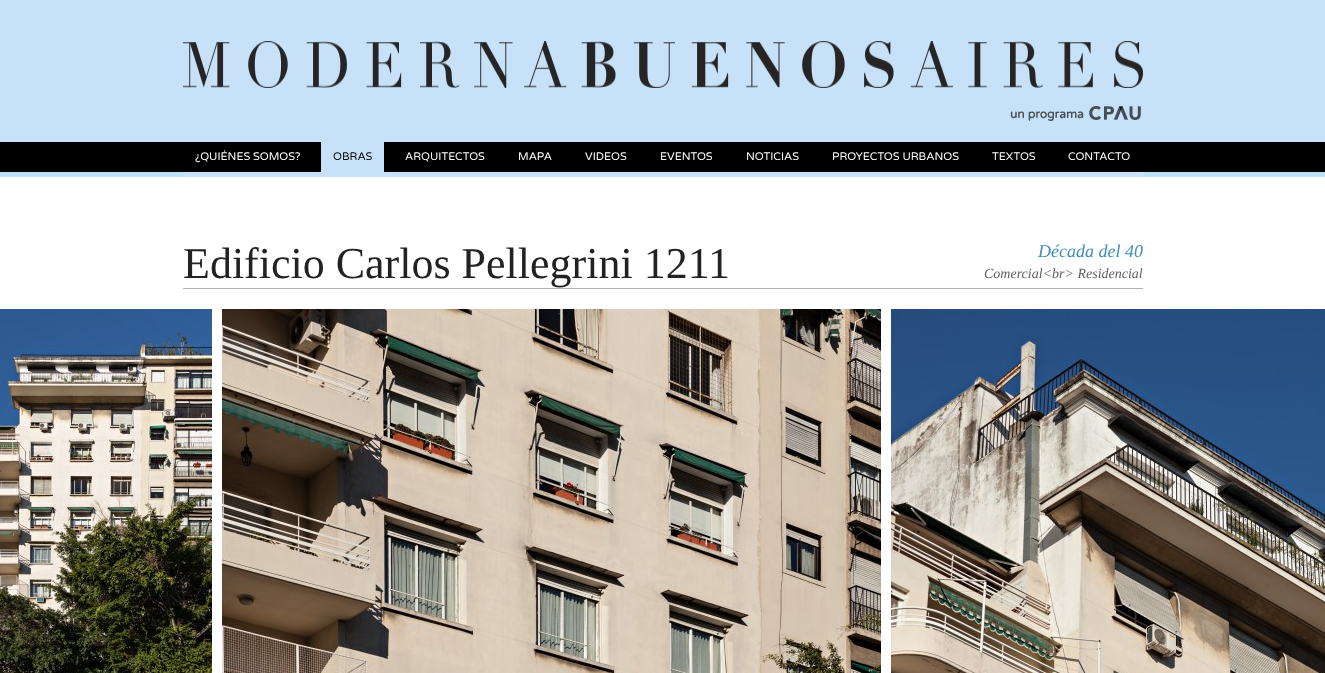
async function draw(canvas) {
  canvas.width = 1325;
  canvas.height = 673;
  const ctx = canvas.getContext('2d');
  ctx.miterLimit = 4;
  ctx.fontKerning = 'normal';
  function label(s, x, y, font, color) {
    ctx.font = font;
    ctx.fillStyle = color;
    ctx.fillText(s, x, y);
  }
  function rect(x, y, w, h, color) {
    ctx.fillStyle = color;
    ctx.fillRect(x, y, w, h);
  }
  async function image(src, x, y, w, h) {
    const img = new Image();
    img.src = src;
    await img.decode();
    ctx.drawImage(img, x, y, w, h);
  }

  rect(0, 0, 1325, 673, '#fff');
  await image('assets/img1.png', 0, 0, 1325, 177);
  await image('assets/img2.png', 183, 41, 960, 47);
  label('un programa', 1010, 118, 'bold 12px Varela Round', '#484e53');
  await image('assets/img3.png', 1089, 106, 52, 14);
  rect(183, 172, 960, 5, '#c6e1f8');
  label('¿QUIÉNES SOMOS?', 195, 160, '11px Varela Round', '#fff');
  rect(321, 142, 63, 30, '#c6e1f8');
  label('OBRAS', 333, 160, '11px Varela Round', '#000');
  label('ARQUITECTOS', 405, 160, '11px Varela Round', '#fff');
  label('MAPA', 518, 160, '11px Varela Round', '#fff');
  label('VIDEOS', 585, 160, '11px Varela Round', '#fff');
  label('EVENTOS', 660, 160, '11px Varela Round', '#fff');
  label('NOTICIAS', 746, 160, '11px Varela Round', '#fff');
  label('PROYECTOS URBANOS', 832, 160, '11px Varela Round', '#fff');
  label('TEXTOS', 992, 160, '11px Varela Round', '#fff');
  label('CONTACTO', 1068, 160, '11px Varela Round', '#fff');
  label('Edificio Carlos Pellegrini 1211', 183, 278, '44px Liberation Serif', '#222');
  label('Década del 40', 1038, 257, 'italic 18px Liberation Serif', '#428eb7');
  label('Comercial<br> Residencial', 984, 278, 'italic 14px Liberation Serif', '#5e5e5e');
  rect(183, 288, 960, 1, '#b2b2b2');
  await image('assets/img4.png', 0, 309, 212, 364);
  await image('assets/img5.png', 222, 309, 659, 364);
  await image('assets/img6.png', 891, 309, 434, 364);
}

draw(document.querySelector('canvas'));
